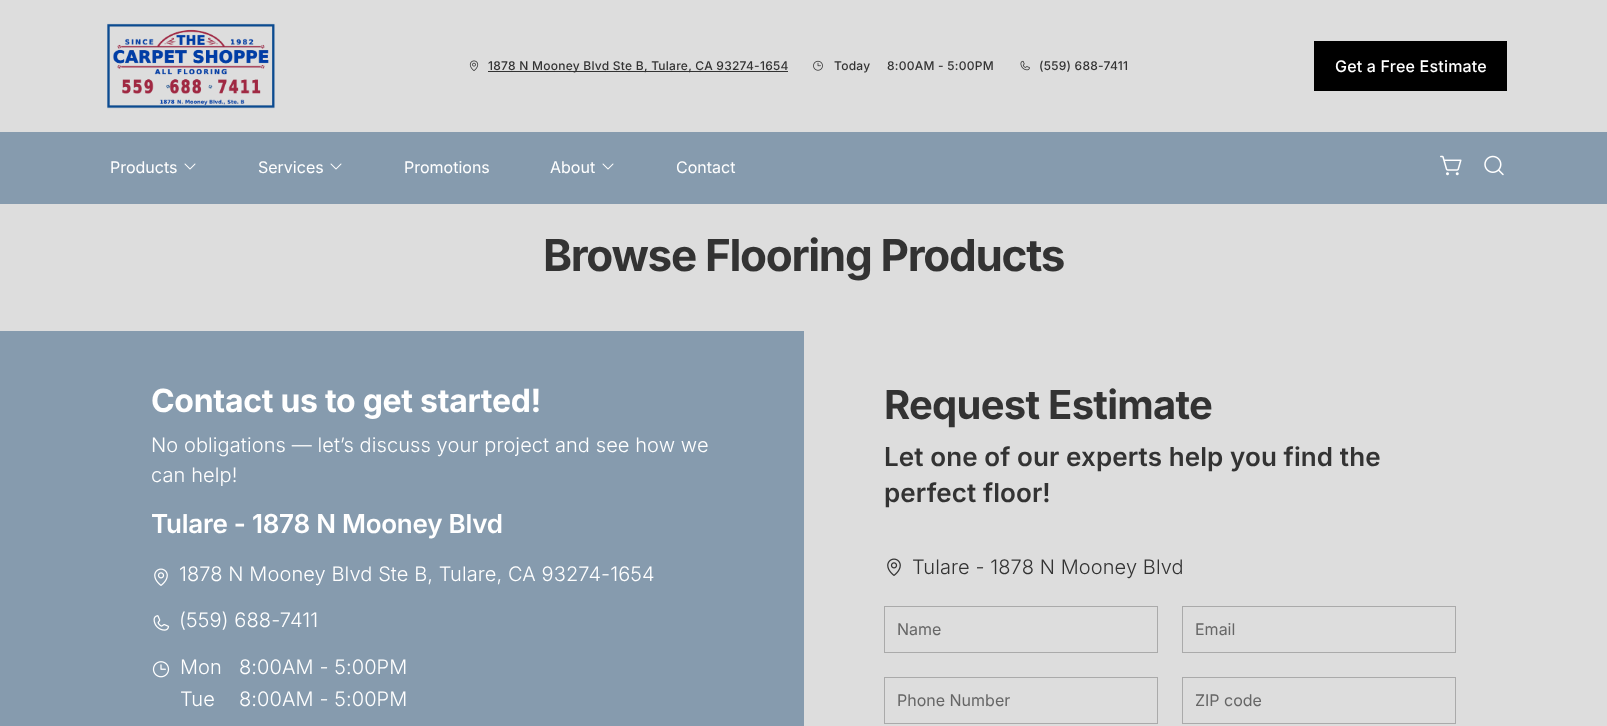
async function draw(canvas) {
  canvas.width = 1607;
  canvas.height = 726;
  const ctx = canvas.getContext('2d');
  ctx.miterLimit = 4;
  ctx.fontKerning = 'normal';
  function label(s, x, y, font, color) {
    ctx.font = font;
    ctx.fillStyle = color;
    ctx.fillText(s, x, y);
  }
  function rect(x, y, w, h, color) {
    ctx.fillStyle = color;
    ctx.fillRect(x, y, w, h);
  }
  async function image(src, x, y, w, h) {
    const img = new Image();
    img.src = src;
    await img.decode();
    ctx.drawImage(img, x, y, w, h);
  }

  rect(0, 0, 1607, 726, '#ddd');
  await image('assets/img1.png', 107, 23, 168, 86);
  await image('assets/img2.png', 469, 60, 10, 11);
  rect(488, 71, 300, 1, '#333');
  ctx.letterSpacing = '0.25px';
  label('1878 N Mooney Blvd Ste B, Tulare, CA 93274-1654', 488, 70, '500 12px Inter', '#333');
  await image('assets/img3.png', 813, 60, 10, 11);
  label('Today', 834, 70, '500 12px Inter', '#333');
  label('8:00AM - 5:00PM', 887, 70, '500 12px Inter', '#333');
  await image('assets/img4.png', 1020, 60, 10, 11);
  label('(559) 688-7411', 1039, 70, '500 12px Inter', '#333');
  rect(1314, 41, 193, 50, '#000');
  ctx.letterSpacing = '0.2px';
  label('Get a Free Estimate', 1335, 72, '500 16px Inter', '#fff');
  rect(0, 132, 1607, 72, '#869bae');
  ctx.letterSpacing = '0px';
  label('Products', 110, 173, '16px Inter', '#fff');
  await image('assets/img5.png', 184, 163, 12, 7);
  label('Services', 258, 173, '16px Inter', '#fff');
  await image('assets/img5.png', 330, 163, 12, 7);
  label('Promotions', 404, 173, '16px Inter', '#fff');
  label('About', 550, 173, '16px Inter', '#fff');
  await image('assets/img5.png', 602, 163, 12, 7);
  label('Contact', 676, 173, '16px Inter', '#fff');
  await image('assets/img6.png', 1440, 155, 22, 21);
  await image('assets/img7.png', 1484, 155, 20, 21);
  ctx.letterSpacing = '-1.3px';
  label('Browse Flooring Products', 543, 271, 'bold 44px Inter', '#333');
  rect(0, 331, 804, 395, '#869bae');
  ctx.letterSpacing = '-0.3px';
  label('Contact us to get started!', 151, 412, 'bold 32px Inter', '#fff');
  ctx.letterSpacing = '0.1px';
  label('No obligations — let’s discuss your project and see how we', 151, 452, '300 20px Inter', '#fff');
  label('can help!', 151, 482, '300 20px Inter', '#fff');
  ctx.letterSpacing = '-0.25px';
  label('Tulare - 1878 N Mooney Blvd', 151, 533, '600 26px Inter', '#fff');
  await image('assets/img8.png', 154, 568, 14, 18);
  ctx.letterSpacing = '0.1px';
  label('1878 N Mooney Blvd Ste B, Tulare, CA 93274-1654', 179, 581, '300 20px Inter', '#fff');
  await image('assets/img9.png', 153, 615, 17, 16);
  label('(559) 688-7411', 179, 627, '300 20px Inter', '#fff');
  await image('assets/img10.png', 152, 661, 18, 17);
  label('Mon', 180, 674, '300 20px Inter', '#fff');
  label('8:00AM - 5:00PM', 239, 674, '300 20px Inter', '#fff');
  label('Tue', 180, 706, '300 20px Inter', '#fff');
  label('8:00AM - 5:00PM', 239, 706, '300 20px Inter', '#fff');
  ctx.letterSpacing = '-0.75px';
  label('Request Estimate', 884, 419, 'bold 40px Inter', '#333');
  ctx.letterSpacing = '0.1px';
  label('Let one of our experts help you find the', 884, 466, '600 26px Inter', '#333');
  label('perfect floor!', 884, 502, '600 26px Inter', '#333');
  await image('assets/img11.png', 887, 558, 14, 18);
  label('Tulare - 1878 N Mooney Blvd', 912, 574, '300 20px Inter', '#333');
  ctx.strokeStyle = '#aaa';
  ctx.strokeRect(884.5, 606.5, 273, 46);
  ctx.letterSpacing = '0px';
  label('Name', 897, 635, '16px Inter', '#666');
  ctx.strokeRect(1182.5, 606.5, 273, 46);
  label('Email', 1195, 635, '16px Inter', '#666');
  ctx.strokeRect(884.5, 677.5, 273, 46);
  label('Phone Number', 897, 706, '16px Inter', '#666');
  ctx.strokeRect(1182.5, 677.5, 273, 46);
  label('ZIP code', 1195, 706, '16px Inter', '#666');
}

draw(document.querySelector('canvas'));
